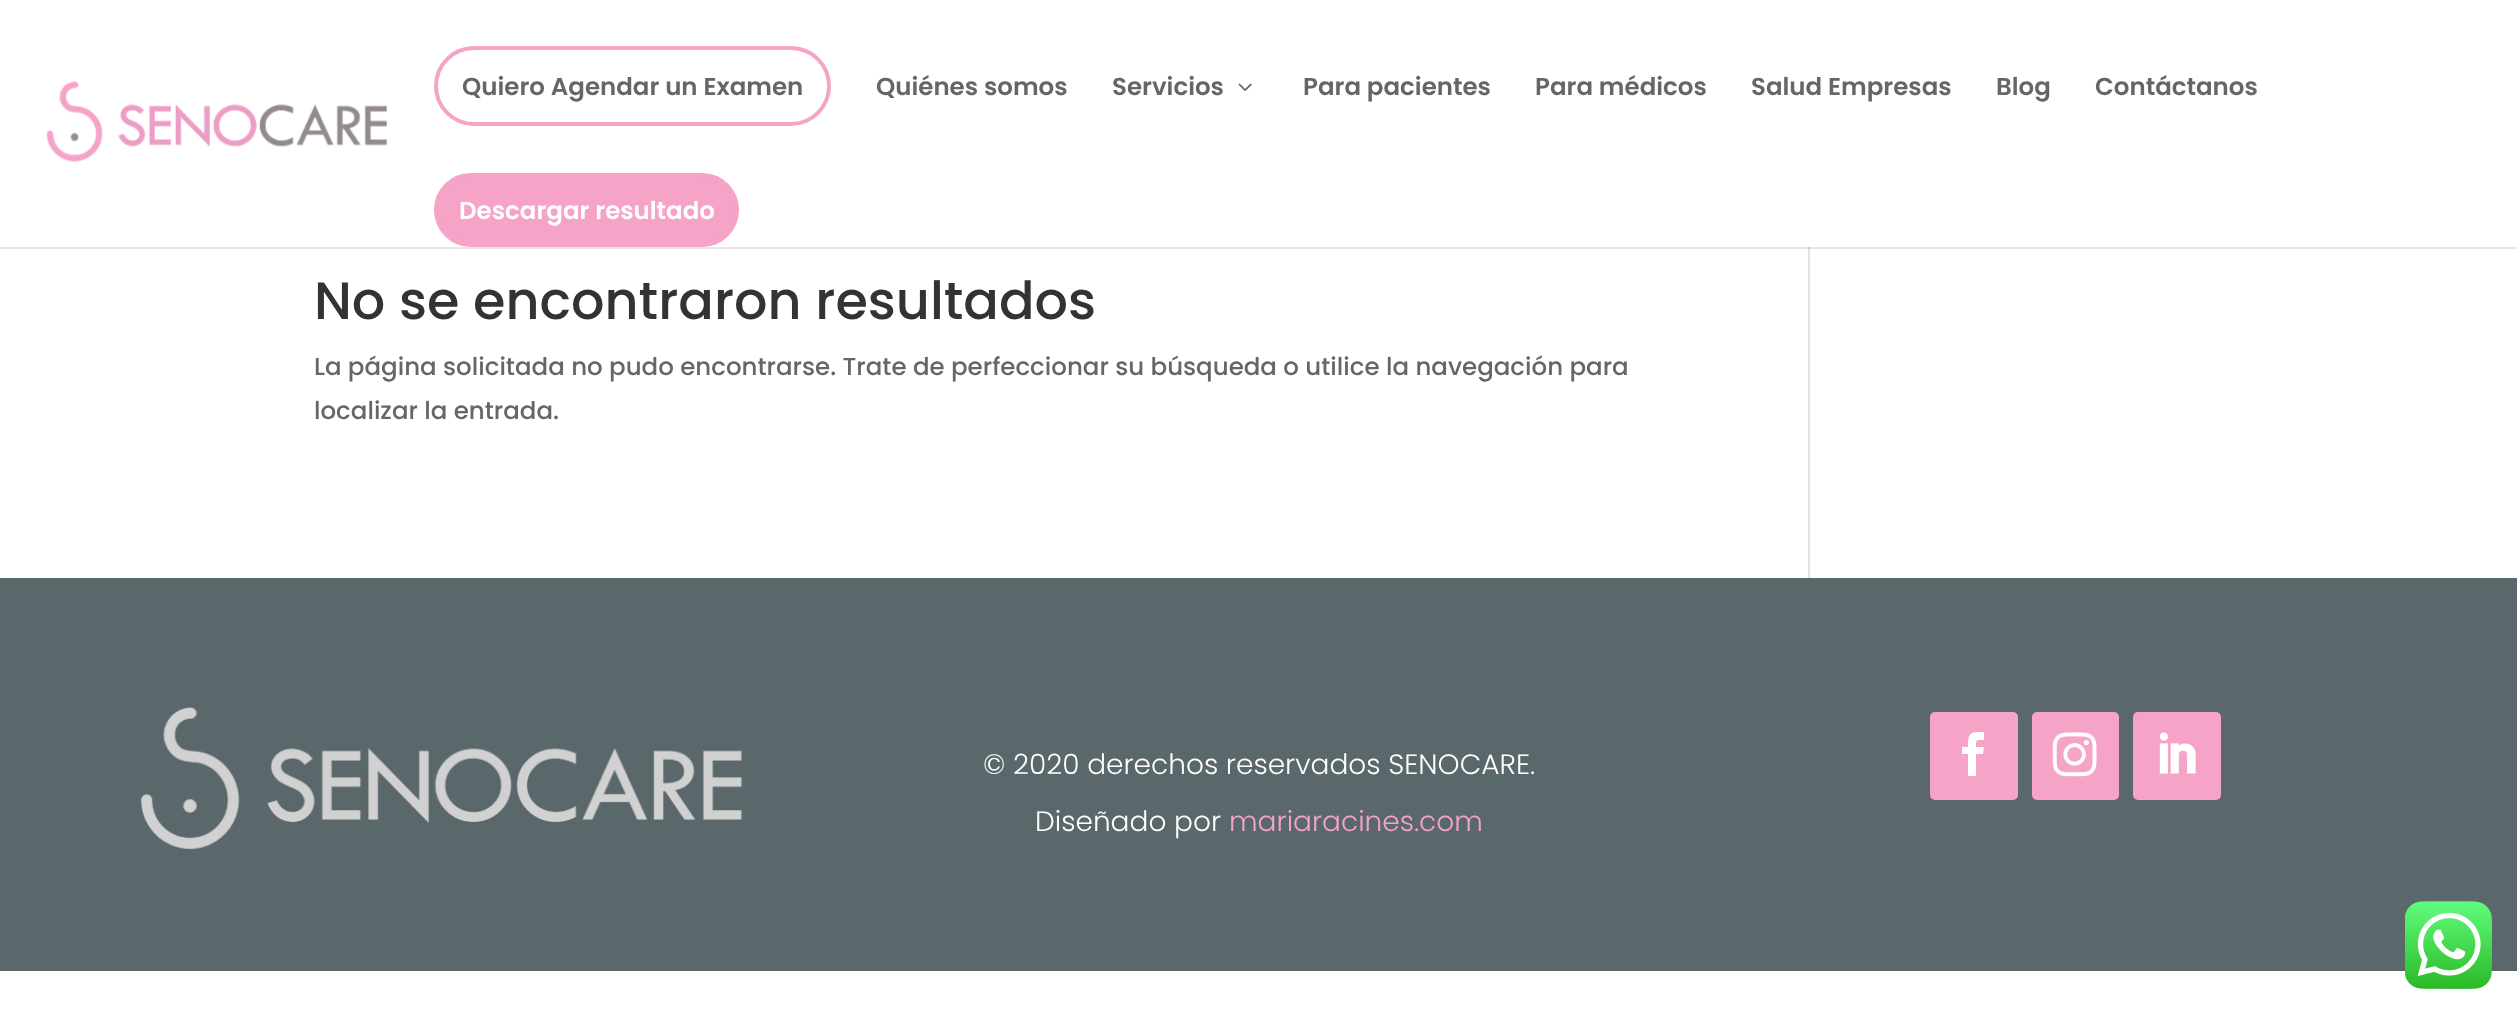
async function draw(canvas) {
  canvas.width = 2517;
  canvas.height = 1014;
  const ctx = canvas.getContext('2d');
  ctx.miterLimit = 4;
  ctx.fontKerning = 'normal';
  function label(s, x, y, font, color) {
    ctx.font = font;
    ctx.fillStyle = color;
    ctx.fillText(s, x, y);
  }
  function rect(x, y, w, h, color) {
    ctx.fillStyle = color;
    ctx.fillRect(x, y, w, h);
  }
  function roundedRect(x, y, w, h, r, color) {
    ctx.fillStyle = color;
    ctx.beginPath();
    ctx.roundRect(x, y, w, h, r);
    ctx.fill();
  }
  async function image(src, x, y, w, h) {
    const img = new Image();
    img.src = src;
    await img.decode();
    ctx.drawImage(img, x, y, w, h);
  }
  let path;

  rect(0, 0, 2517, 1014, '#fff');
  rect(0, 247, 2517, 2, '#e6e6e6');
  await image('assets/img1.png', 46, 81, 342, 81);
  ctx.beginPath();
  ctx.roundRect(436, 48, 393, 76, 38);
  ctx.strokeStyle = '#f6a3c8';
  ctx.lineWidth = 4;
  ctx.stroke();
  label('Quiero Agendar un Examen', 462, 95, '600 24.5px Poppins', '#666');
  label('Quiénes somos', 876, 95, '600 24.5px Poppins', '#666');
  label('Servicios', 1112, 95, '600 24.5px Poppins', '#666');
  await image('assets/img2.png', 1238, 83, 14, 8);
  label('Para pacientes', 1303, 95, '600 24.5px Poppins', '#666');
  label('Para médicos', 1535, 95, '600 24.5px Poppins', '#666');
  label('Salud Empresas', 1751, 95, '600 24.5px Poppins', '#666');
  label('Blog', 1996, 95, '600 24.5px Poppins', '#666');
  label('Contáctanos', 2095, 95, '600 24.5px Poppins', '#666');
  ctx.fillStyle = '#f6a3c8';
  ctx.beginPath();
  ctx.roundRect(436, 175, 301, 70, 35);
  ctx.fill();
  ctx.stroke();
  label('Descargar resultado', 459, 219, '600 24.5px Poppins', '#fff');
  label('No se encontraron resultados', 314, 319, '500 52.5px Poppins', '#333');
  label('La página solicitada no pudo encontrarse. Trate de perfeccionar su búsqueda o utilice la navegación para', 314, 375, '500 24.5px Poppins', '#666');
  label('localizar la entrada.', 314, 419, '500 24.5px Poppins', '#666');
  rect(1808, 249, 2, 329, '#e2e2e2');
  rect(1808, 247, 2, 2, '#cbcbcb');
  rect(0, 578, 2517, 393, '#5b686b');
  await image('assets/img3.png', 140, 707, 603, 143);
  label('© 2020 derechos reservados SENOCARE.', 983, 774, '300 28px Poppins', '#fff');
  label('Diseñado por', 1035, 831, '300 28px Poppins', '#fff');
  label('mariaracines.com', 1229, 831, '300 28px Poppins', '#f6a3c8');
  roundedRect(1930, 712, 88, 88, 5, '#f6a3c8');
  ctx.fillStyle = '#fff';
  path = new Path2D('M1968 776H1976V754H1983L1984 747H1976C1976 739 1976 740 1984 740V732C1970 732 1968 732 1968 747H1962V754H1968Z');
  ctx.fill(path);
  roundedRect(2032, 712, 87, 88, 5, '#f6a3c8');
  await image('assets/img4.png', 2052, 732, 45, 45);
  roundedRect(2133, 712, 88, 88, 5, '#f6a3c8');
  await image('assets/img5.png', 2159, 732, 37, 42);
  await image('assets/img6.png', 2405, 901, 87, 88);
}

draw(document.querySelector('canvas'));
